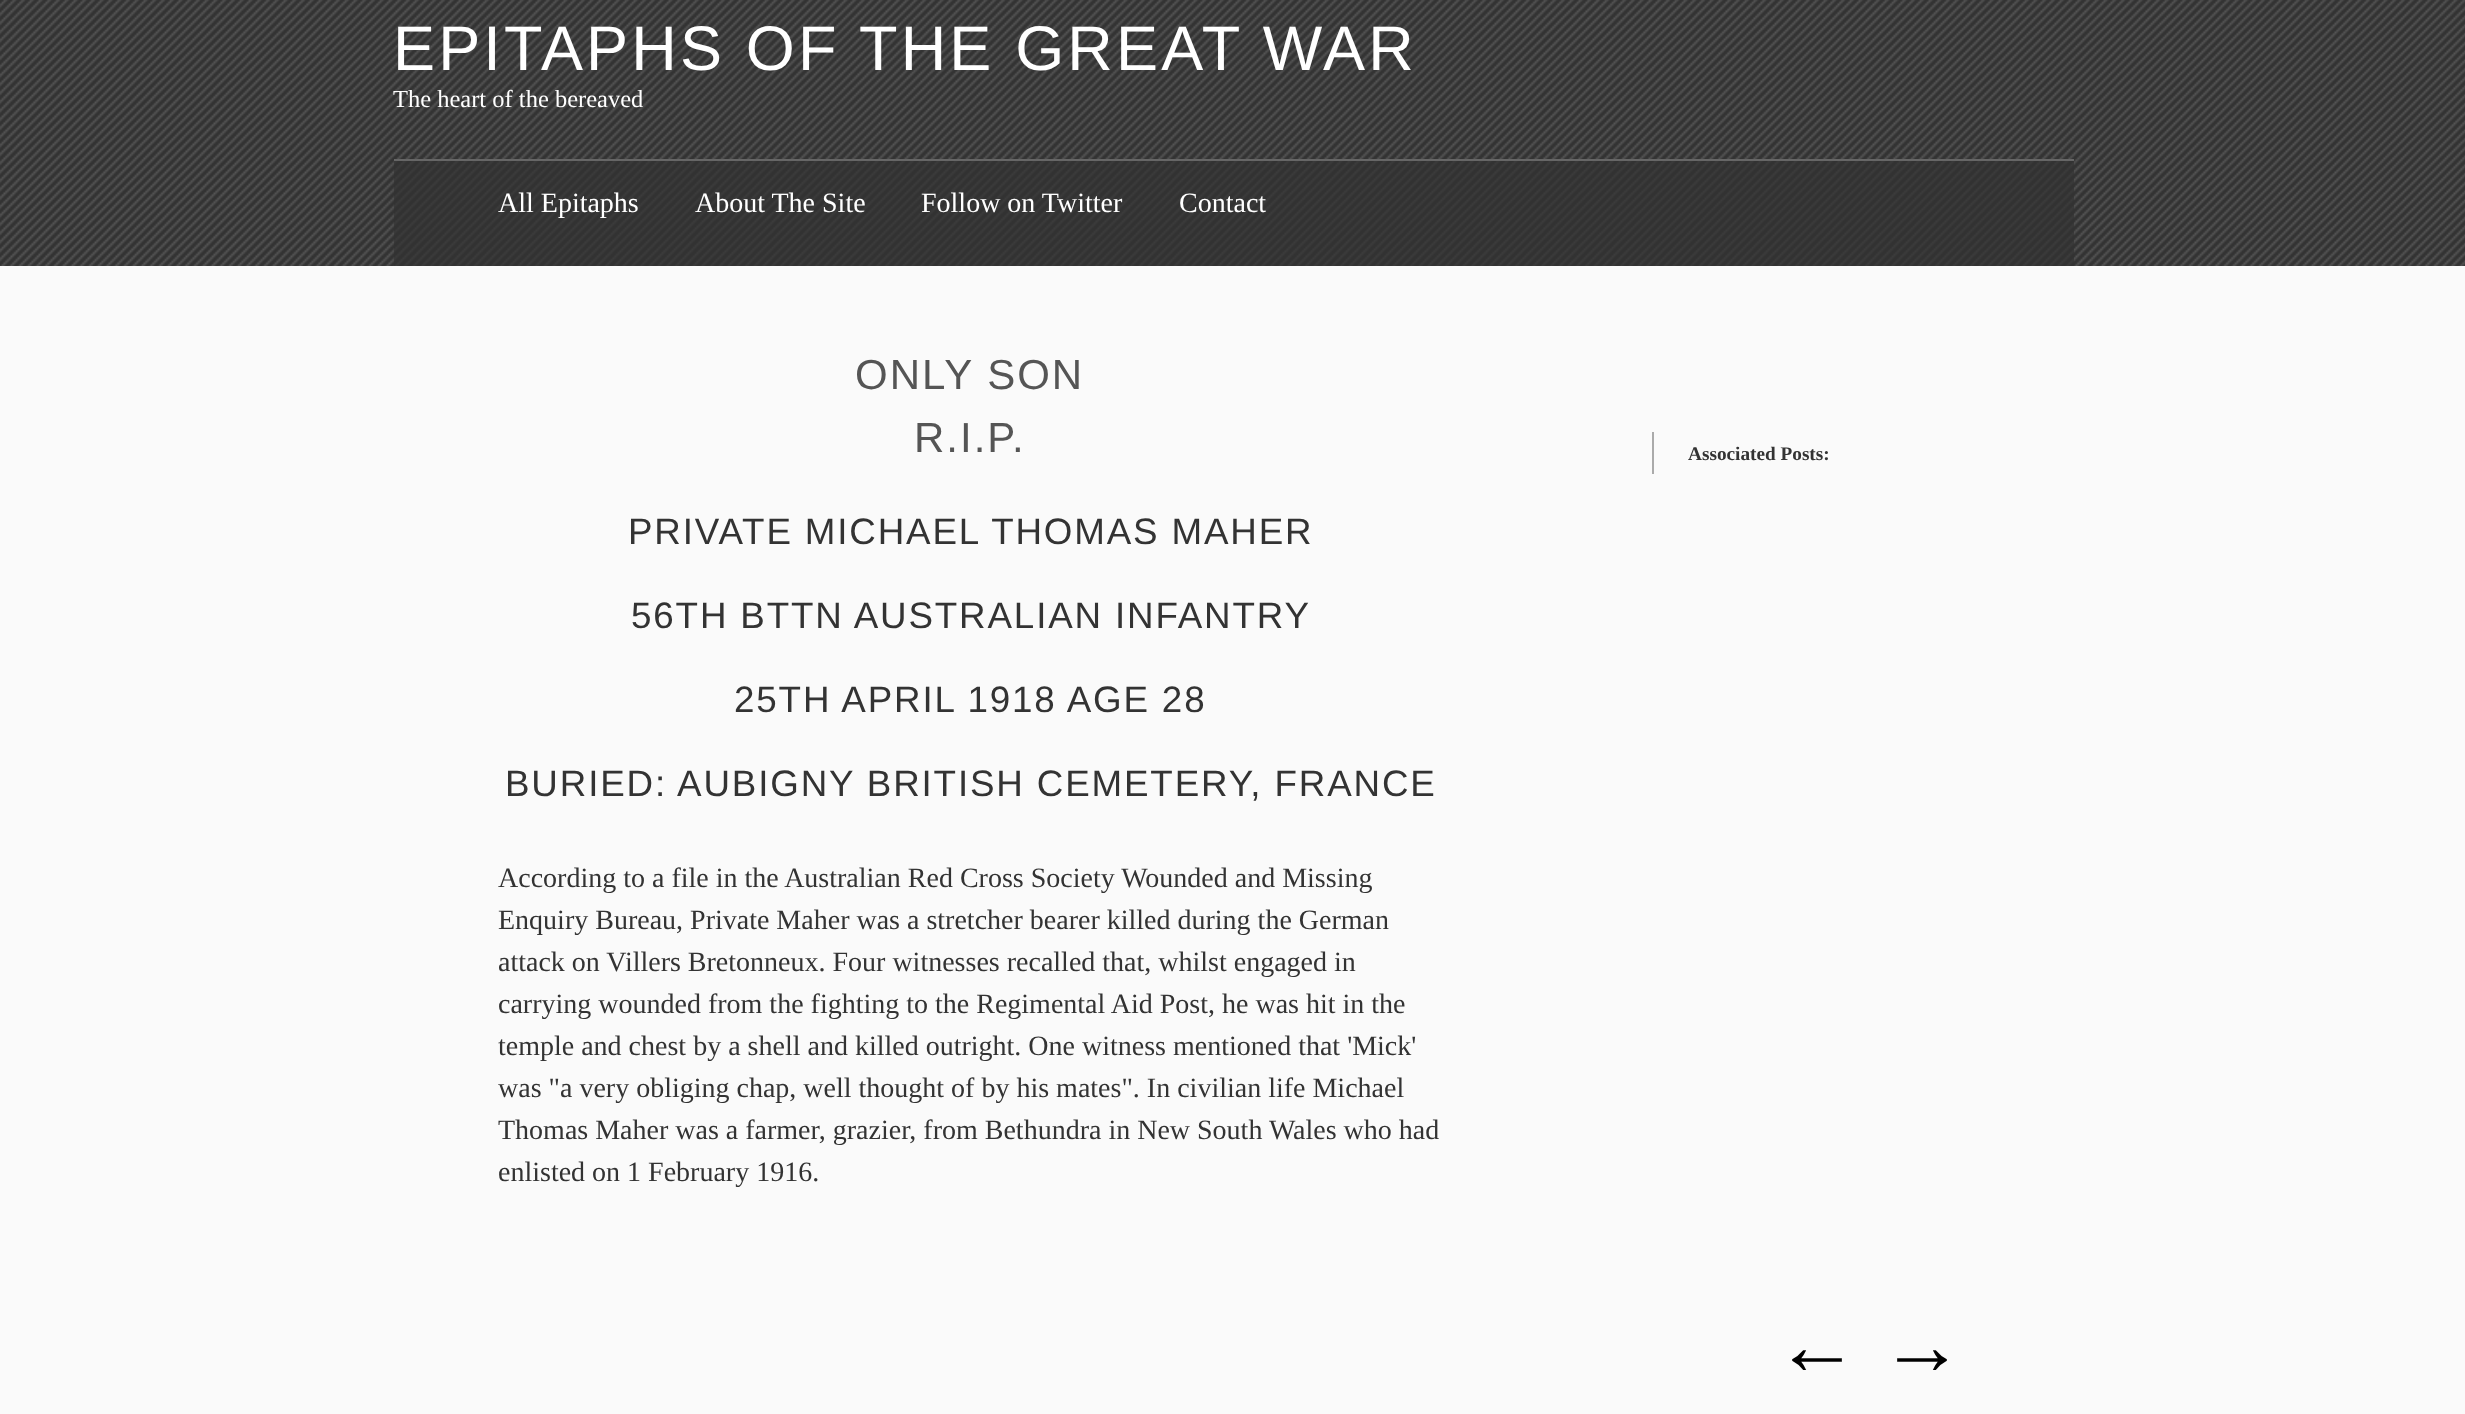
async function draw(canvas) {
  canvas.width = 2465;
  canvas.height = 1414;
  const ctx = canvas.getContext('2d');
  ctx.miterLimit = 4;
  ctx.fontKerning = 'normal';
  function label(s, x, y, font, color) {
    ctx.font = font;
    ctx.fillStyle = color;
    ctx.fillText(s, x, y);
  }
  function rect(x, y, w, h, color) {
    ctx.fillStyle = color;
    ctx.fillRect(x, y, w, h);
  }
  async function image(src, x, y, w, h) {
    const img = new Image();
    img.src = src;
    await img.decode();
    ctx.drawImage(img, x, y, w, h);
  }

  rect(0, 0, 2465, 1414, '#fafafa');
  rect(0, 0, 2465, 266, '#333');
  await image('assets/img1.png', 0, 0, 2465, 266);
  ctx.letterSpacing = '3.15px';
  label('EPITAPHS OF THE GREAT WAR', 393, 70, '63px Liberation Sans', '#fff');
  ctx.letterSpacing = '0px';
  label('The heart of the bereaved', 393, 107, '24.5px Liberation Serif', '#fff');
  rect(394, 161, 1680, 105, '#323232b3');
  rect(394, 159, 1680, 2, '#666');
  label('All Epitaphs', 498, 212, '28px Liberation Serif', '#fff');
  label('About The Site', 695, 212, '28px Liberation Serif', '#fff');
  label('Follow on Twitter', 921, 212, '28px Liberation Serif', '#fff');
  label('Contact', 1179, 212, '28px Liberation Serif', '#fff');
  ctx.letterSpacing = '2px';
  label('ONLY SON', 855, 389, '42px Liberation Sans', '#555');
  label('R.I.P.', 914, 452, '42px Liberation Sans', '#555');
  rect(1652, 432, 2, 42, '#aaa');
  ctx.letterSpacing = '0px';
  label('Associated Posts:', 1688, 460, 'bold 19.25px Liberation Serif', '#333');
  ctx.letterSpacing = '1.85px';
  label('PRIVATE MICHAEL THOMAS MAHER', 628, 544, '36.75px Liberation Sans', '#333');
  label('56TH BTTN AUSTRALIAN INFANTRY', 631, 628, '36.75px Liberation Sans', '#333');
  label('25TH APRIL 1918 AGE 28', 734, 712, '36.75px Liberation Sans', '#333');
  label('BURIED: AUBIGNY BRITISH CEMETERY, FRANCE', 505, 796, '36.75px Liberation Sans', '#333');
  ctx.letterSpacing = '0px';
  label('According to a file in the Australian Red Cross Society Wounded and Missing', 498, 887, '28px Liberation Serif', '#333');
  label('Enquiry Bureau, Private Maher was a stretcher bearer killed during the German', 498, 929, '28px Liberation Serif', '#333');
  label('attack on Villers Bretonneux. Four witnesses recalled that, whilst engaged in', 498, 971, '28px Liberation Serif', '#333');
  label('carrying wounded from the fighting to the Regimental Aid Post, he was hit in the', 498, 1013, '28px Liberation Serif', '#333');
  label('temple and chest by a shell and killed outright. One witness mentioned that \'Mick\'', 498, 1055, '28px Liberation Serif', '#333');
  label('was "a very obliging chap, well thought of by his mates". In civilian life Michael', 498, 1097, '28px Liberation Serif', '#333');
  label('Thomas Maher was a farmer, grazier, from Bethundra in New South Wales who had', 498, 1139, '28px Liberation Serif', '#333');
  label('enlisted on 1 February 1916.', 498, 1181, '28px Liberation Serif', '#333');
  label('← →', 1775, 1374, '84px Liberation Serif', '#000');
}

draw(document.querySelector('canvas'));
